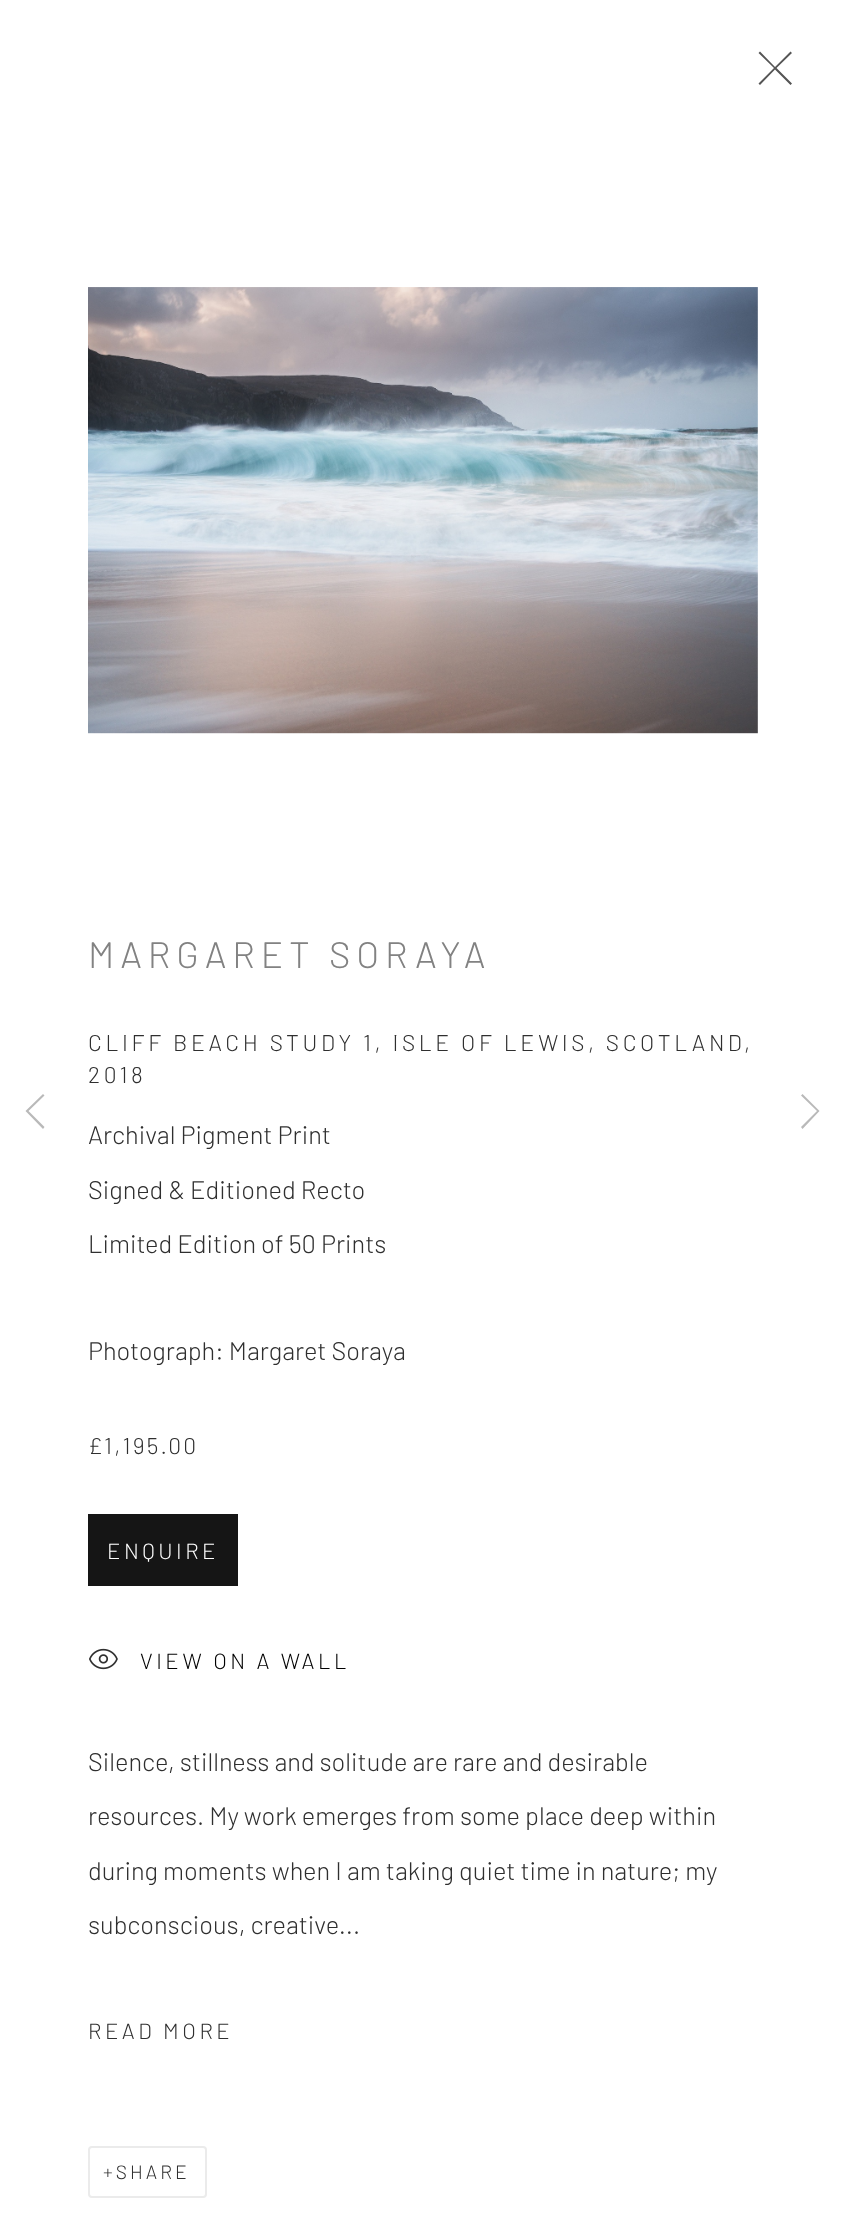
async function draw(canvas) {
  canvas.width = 845;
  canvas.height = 2225;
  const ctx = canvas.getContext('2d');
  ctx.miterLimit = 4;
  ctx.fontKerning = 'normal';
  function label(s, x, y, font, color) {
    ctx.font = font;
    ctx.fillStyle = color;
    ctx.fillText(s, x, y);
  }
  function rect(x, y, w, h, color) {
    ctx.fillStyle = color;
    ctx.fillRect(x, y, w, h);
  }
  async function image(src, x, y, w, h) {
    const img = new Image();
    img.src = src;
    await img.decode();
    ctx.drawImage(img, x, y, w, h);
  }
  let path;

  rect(0, 0, 845, 2225, '#fff');
  ctx.fillStyle = '#555';
  path = new Path2D('M792 53L790.5 51.5L775 67L760 51.5L758.5 53L774 68L758.5 83.5L760 85L775 69.5L790.5 85L792 83.5L776.5 68Z');
  ctx.fill(path);
  await image('assets/img1.png', 88, 287, 670, 447);
  ctx.letterSpacing = '5.9px';
  label('MARGARET SORAYA', 88, 968, '300 36.75px Barlow', '#828282');
  ctx.letterSpacing = '3.65px';
  label('CLIFF BEACH STUDY 1, ISLE OF LEWIS, SCOTLAND', 88, 1051, '300 22.75px Barlow', '#2f2f2f');
  label(',', 744, 1051, '300 22.75px Barlow', '#2f2f2f');
  label('2018', 88, 1083, '300 22.75px Barlow', '#2f2f2f');
  ctx.letterSpacing = '0px';
  label('Archival Pigment Print', 88, 1144, '300 25.4px Barlow', '#2f2f2f');
  label('Signed & Editioned Recto', 88, 1199, '300 25.4px Barlow', '#2f2f2f');
  label('Limited Edition of 50 Prints', 88, 1253, '300 25.4px Barlow', '#2f2f2f');
  label('Photograph: Margaret Soraya', 88, 1360, '300 25.4px Barlow', '#2f2f2f');
  ctx.letterSpacing = '2.25px';
  label('£1,195.00', 88, 1454, '300 22.75px Barlow', '#2f2f2f');
  rect(88, 1514, 150, 72, '#151515');
  ctx.letterSpacing = '3.5px';
  label('ENQUIRE', 107, 1559, '300 21.9px Barlow', '#fff');
  await image('assets/img2.png', 89, 1648, 29, 22);
  label('VIEW ON A WALL', 140, 1669, '300 21.9px Barlow', '#000');
  ctx.letterSpacing = '0px';
  label('Silence, stillness and solitude are rare and desirable', 88, 1771, '300 25.4px Barlow', '#2f2f2f');
  label('resources. My work emerges from some place deep within', 88, 1825, '300 25.4px Barlow', '#2f2f2f');
  label('during moments when I am taking quiet time in nature; my', 88, 1880, '300 25.4px Barlow', '#2f2f2f');
  label('subconscious, creative...', 88, 1934, '300 25.4px Barlow', '#2f2f2f');
  ctx.letterSpacing = '3.5px';
  label('READ MORE', 88, 2039, '300 21.9px Barlow', '#2f2f2f');
  ctx.beginPath();
  ctx.roundRect(89, 2147, 117, 50, 3);
  ctx.strokeStyle = '#ebebeb';
  ctx.lineWidth = 2;
  ctx.stroke();
  ctx.letterSpacing = '3px';
  label('+SHARE', 103, 2179, '300 19.25px Barlow', '#2f2f2f');
  ctx.fillStyle = '#b9b9b9';
  path = new Path2D('M27 1112.5L43 1129L44.5 1127L28.5 1111L44.5 1095.5L43 1094L25.5 1111Z');
  ctx.fill(path);
  path = new Path2D('M819.5 1111L802.5 1094L801 1095.5L817 1111L801 1127L802.5 1129Z');
  ctx.fill(path);
}

draw(document.querySelector('canvas'));
